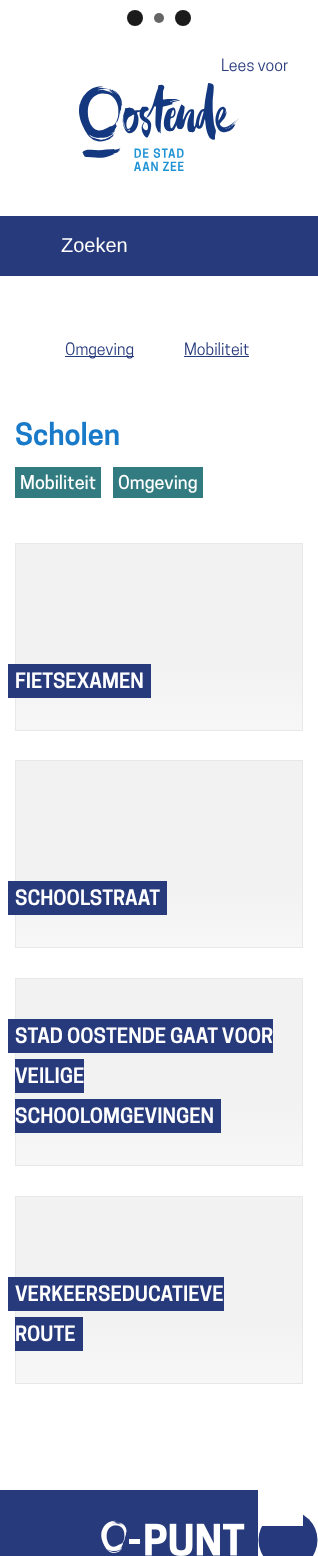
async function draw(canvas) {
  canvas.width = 318;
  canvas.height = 1556;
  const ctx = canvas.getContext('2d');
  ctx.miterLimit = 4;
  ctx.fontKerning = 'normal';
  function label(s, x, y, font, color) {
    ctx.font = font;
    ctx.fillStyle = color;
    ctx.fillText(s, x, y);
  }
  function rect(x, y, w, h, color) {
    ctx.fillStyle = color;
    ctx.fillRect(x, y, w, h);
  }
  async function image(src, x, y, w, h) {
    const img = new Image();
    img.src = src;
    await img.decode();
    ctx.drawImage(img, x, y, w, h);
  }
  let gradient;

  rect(0, 0, 318, 1556, '#fff');
  ctx.fillStyle = '#1b1b1b';
  ctx.beginPath();
  ctx.arc(135, 18, 8, 0, 2 * Math.PI);
  ctx.fill();
  ctx.fillStyle = '#656565';
  ctx.beginPath();
  ctx.arc(159, 18, 5, 0, 2 * Math.PI);
  ctx.fill();
  ctx.fillStyle = '#1b1b1b';
  ctx.beginPath();
  ctx.arc(183, 18, 8, 0, 2 * Math.PI);
  ctx.fill();
  label('Lees voor', 221, 71, '16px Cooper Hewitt', '#273a7c');
  await image('assets/img1.png', 79, 83, 160, 88);
  rect(0, 216, 318, 60, '#273a7c');
  label('Zoeken', 61, 252, '20px Liberation Sans', '#fff');
  rect(65, 356, 69, 1, '#273a7c');
  label('Omgeving', 65, 355, '16px Cooper Hewitt', '#273a7c');
  label('Mobiliteit', 184, 355, '16px Cooper Hewitt', '#273a7c');
  rect(184, 356, 65, 1, '#273a7c');
  label('Scholen', 15, 445, '600 29px Cooper Hewitt', '#187ac9');
  rect(15, 467, 86, 31, '#317b81');
  label('Mobiliteit', 20, 489, '500 18px Cooper Hewitt', '#fff');
  rect(113, 467, 90, 31, '#317b81');
  label('Omgeving', 118, 489, '500 18px Cooper Hewitt', '#fff');
  ctx.strokeStyle = '#e8e8e8';
  ctx.strokeRect(15.5, 543.5, 287, 187);
  gradient = ctx.createLinearGradient(159, 544, 159, 730);
  gradient.addColorStop(0.66, '#f2f2f2');
  gradient.addColorStop(1, '#f7f7f7');
  ctx.fillStyle = gradient;
  ctx.fillRect(16, 544, 286, 186);
  rect(8, 664, 143, 34, '#273a7c');
  label('FIETSEXAMEN', 15, 688, '600 20px Cooper Hewitt', '#fff');
  ctx.strokeRect(15.5, 760.5, 287, 187);
  gradient = ctx.createLinearGradient(159, 761, 159, 947);
  gradient.addColorStop(0.66, '#f2f2f2');
  gradient.addColorStop(1, '#f7f7f7');
  ctx.fillStyle = gradient;
  ctx.fillRect(16, 761, 286, 186);
  rect(8, 881, 159, 34, '#273a7c');
  label('SCHOOLSTRAAT', 15, 905, '600 20px Cooper Hewitt', '#fff');
  ctx.strokeRect(15.5, 978.5, 287, 187);
  gradient = ctx.createLinearGradient(159, 979, 159, 1165);
  gradient.addColorStop(0.66, '#f2f2f2');
  gradient.addColorStop(1, '#f7f7f7');
  ctx.fillStyle = gradient;
  ctx.fillRect(16, 979, 286, 186);
  rect(8, 1019, 265, 34, '#273a7c');
  label('STAD OOSTENDE GAAT VOOR', 15, 1043, '600 20px Cooper Hewitt', '#fff');
  rect(15, 1059, 69, 34, '#273a7c');
  label('VEILIGE', 15, 1083, '600 20px Cooper Hewitt', '#fff');
  rect(15, 1099, 206, 34, '#273a7c');
  label('SCHOOLOMGEVINGEN', 15, 1123, '600 20px Cooper Hewitt', '#fff');
  ctx.strokeRect(15.5, 1196.5, 287, 187);
  gradient = ctx.createLinearGradient(159, 1197, 159, 1383);
  gradient.addColorStop(0.66, '#f2f2f2');
  gradient.addColorStop(1, '#f7f7f7');
  ctx.fillStyle = gradient;
  ctx.fillRect(16, 1197, 286, 186);
  rect(8, 1277, 216, 34, '#273a7c');
  label('VERKEERSEDUCATIEVE', 15, 1301, '600 20px Cooper Hewitt', '#fff');
  rect(15, 1317, 68, 34, '#273a7c');
  label('ROUTE', 15, 1341, '600 20px Cooper Hewitt', '#fff');
  rect(0, 1490, 258, 66, '#273a7c');
  await image('assets/img2.png', 101, 1520, 144, 36);
  ctx.fillStyle = '#25397c';
  ctx.beginPath();
  ctx.arc(288, 1540, 29.5, 0, 2 * Math.PI);
  ctx.fill();
  rect(262, 1510, 41, 16, '#fff');
}

draw(document.querySelector('canvas'));
